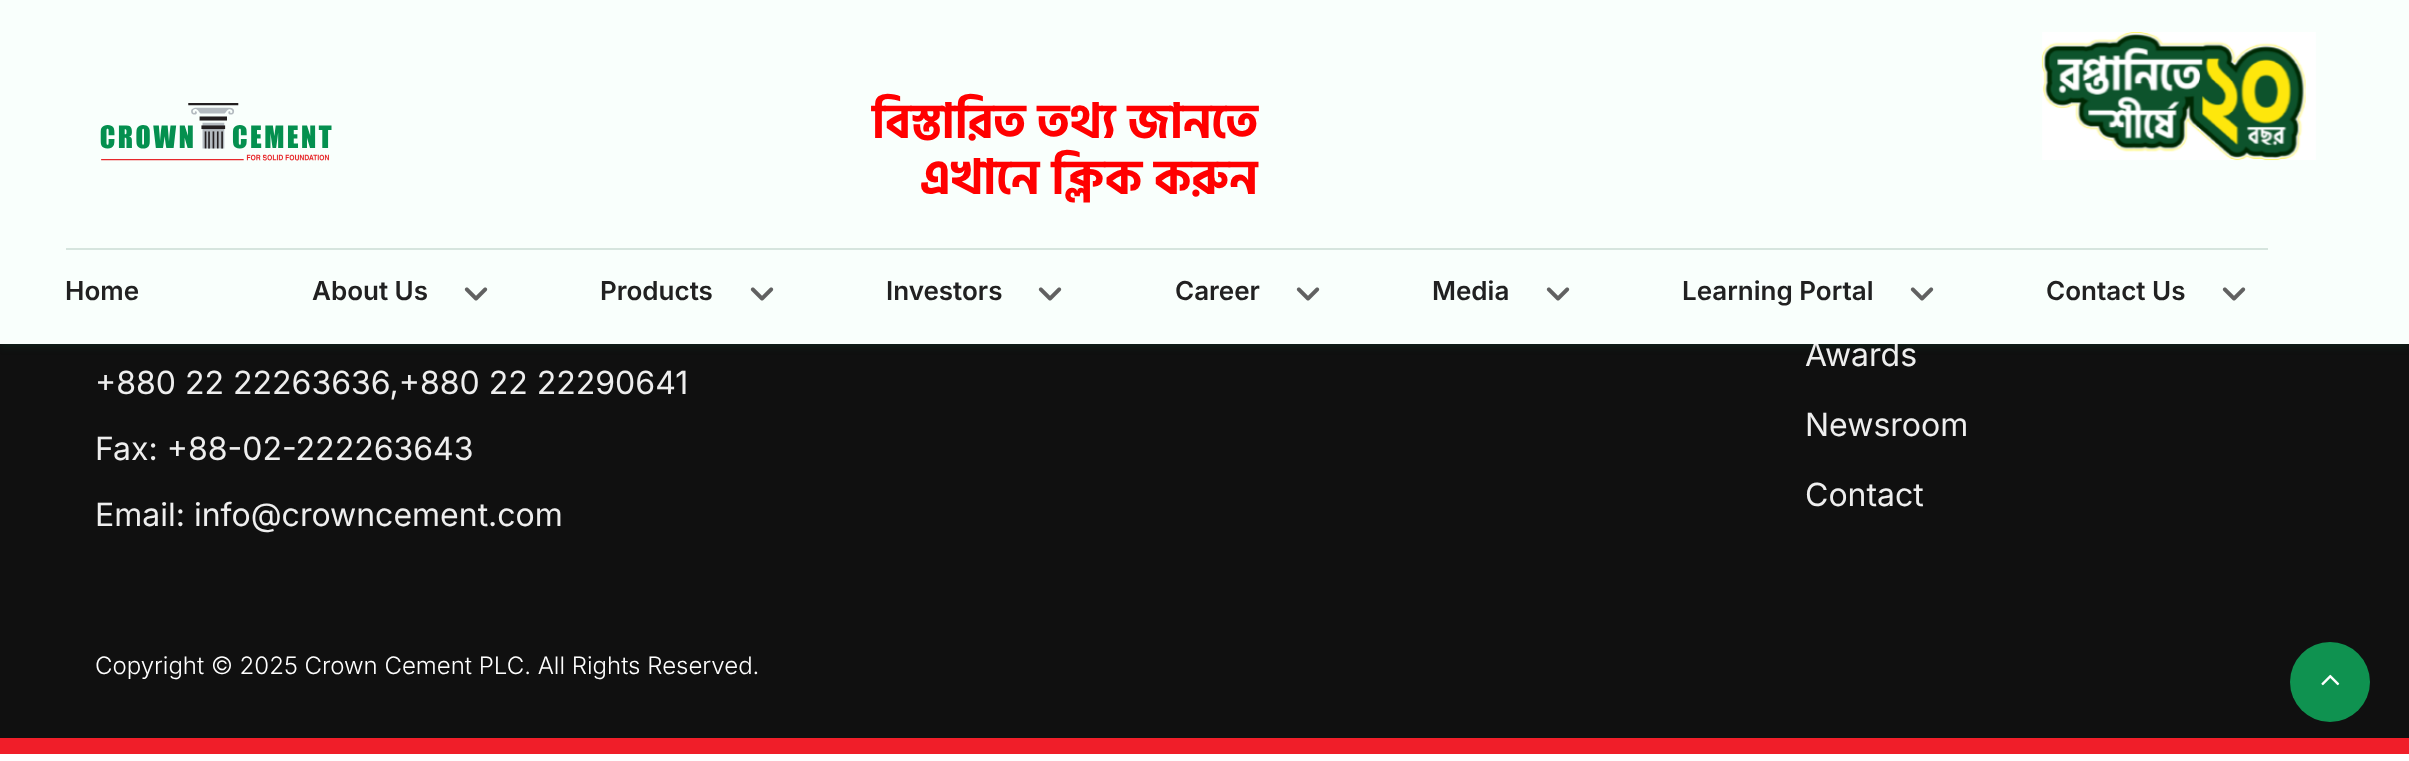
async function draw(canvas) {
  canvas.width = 2409;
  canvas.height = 761;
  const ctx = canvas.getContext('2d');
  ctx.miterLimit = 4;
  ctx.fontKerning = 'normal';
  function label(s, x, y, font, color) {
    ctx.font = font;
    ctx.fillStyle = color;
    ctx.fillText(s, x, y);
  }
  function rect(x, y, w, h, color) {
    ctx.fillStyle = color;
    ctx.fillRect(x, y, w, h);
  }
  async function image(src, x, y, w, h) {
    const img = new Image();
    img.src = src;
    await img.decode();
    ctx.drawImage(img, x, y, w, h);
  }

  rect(0, 0, 2409, 761, '#101010');
  ctx.fillStyle = '#0c703d33';
  ctx.filter = 'blur(4px)';
  ctx.beginPath();
  ctx.rect(0, 2, 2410, 344);
  ctx.fill();
  ctx.filter = 'none';
  label('Awards', 1805, 366, '32px Inter', '#eee');
  rect(0, 0, 2409, 344, '#f9fffc');
  await image('assets/img1.png', 100, 103, 232, 58);
  label('বিস্তারিত তথ্য জানতে', 872, 138, 'bold 48px Hind Siliguri', '#f00');
  label('এখানে ক্লিক করুন', 920, 194, 'bold 48px Hind Siliguri', '#f00');
  await image('assets/img2.png', 2041, 32, 275, 129);
  rect(66, 248, 2202, 2, '#d6e5de');
  label('Home', 65, 300, '600 26px Inter', '#212121');
  label('About Us', 312, 300, '600 26px Inter', '#212121');
  await image('assets/img3.png', 464, 287, 24, 14);
  label('Products', 600, 300, '600 26px Inter', '#212121');
  await image('assets/img3.png', 750, 287, 24, 14);
  label('Investors', 886, 300, '600 26px Inter', '#212121');
  await image('assets/img3.png', 1038, 287, 24, 14);
  label('Career', 1175, 300, '600 26px Inter', '#212121');
  await image('assets/img3.png', 1296, 287, 24, 14);
  label('Media', 1432, 300, '600 26px Inter', '#212121');
  await image('assets/img3.png', 1546, 287, 24, 14);
  label('Learning Portal', 1682, 300, '600 26px Inter', '#212121');
  await image('assets/img3.png', 1910, 287, 24, 14);
  label('Contact Us', 2046, 300, '600 26px Inter', '#212121');
  await image('assets/img3.png', 2222, 287, 24, 14);
  label('+880 22 22263636,+880 22 22290641', 95, 394, '32px Inter', '#eee');
  label('Fax: +88-02-222263643', 95, 460, '32px Inter', '#eee');
  label('Email: info@crowncement.com', 95, 526, '32px Inter', '#eee');
  label('Copyright © 2025 Crown Cement PLC. All Rights Reserved.', 95, 674, '300 24px Inter', '#fff');
  label('Newsroom', 1805, 436, '32px Inter', '#eee');
  label('Contact', 1805, 506, '32px Inter', '#eee');
  ctx.fillStyle = '#0f9250';
  ctx.beginPath();
  ctx.arc(2330, 682, 40, 0, 2 * Math.PI);
  ctx.fill();
  await image('assets/img4.png', 2321, 674, 19, 12);
  rect(0, 738, 2409, 16, '#f01e29');
  rect(0, 754, 2409, 7, '#fff');
}

draw(document.querySelector('canvas'));
